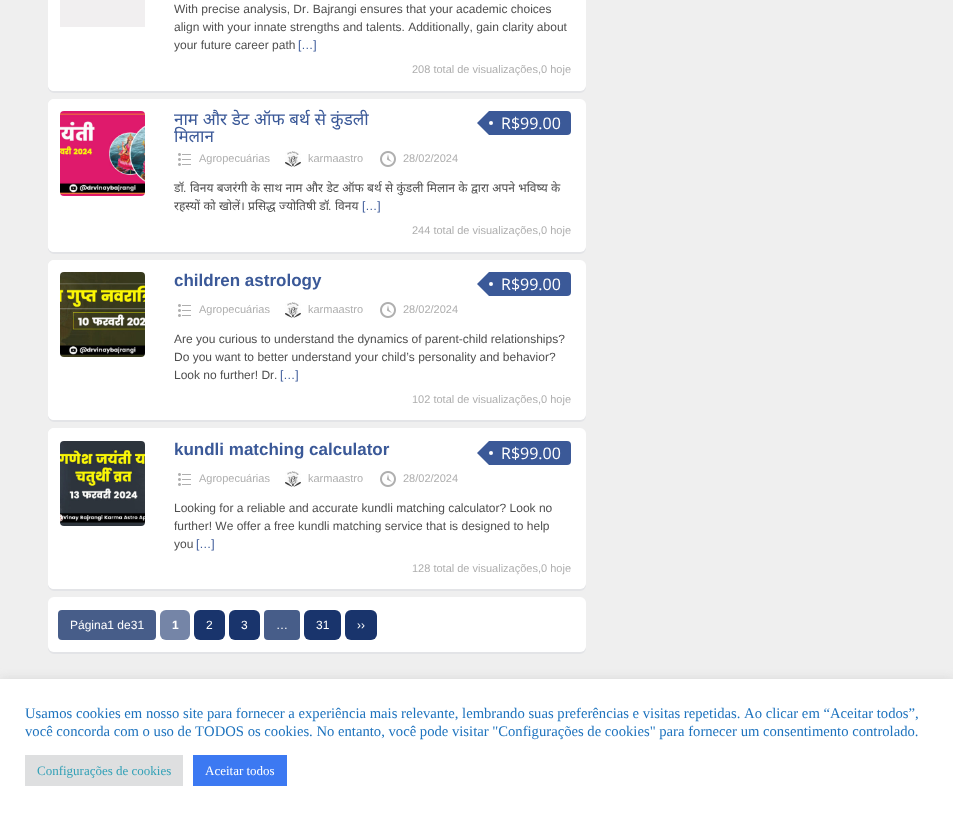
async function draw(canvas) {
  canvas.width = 953;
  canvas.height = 816;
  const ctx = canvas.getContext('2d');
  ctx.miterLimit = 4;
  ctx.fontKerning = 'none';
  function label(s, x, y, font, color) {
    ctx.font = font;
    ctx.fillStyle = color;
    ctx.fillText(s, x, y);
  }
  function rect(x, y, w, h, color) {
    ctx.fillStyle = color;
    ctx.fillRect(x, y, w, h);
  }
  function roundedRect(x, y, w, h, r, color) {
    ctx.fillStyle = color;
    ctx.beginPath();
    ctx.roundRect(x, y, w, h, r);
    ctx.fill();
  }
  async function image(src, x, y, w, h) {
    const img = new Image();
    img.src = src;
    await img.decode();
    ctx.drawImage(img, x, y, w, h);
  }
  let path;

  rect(0, 0, 953, 816, '#efefef');
  ctx.fillStyle = '#e3e4e7';
  path = new Path2D('M48 85V87C48 90 51 93 54 93H580C583 93 586 90 586 87V85C586 88 583 91 580 91H54C51 91 48 88 48 85Z');
  ctx.fill(path);
  roundedRect(48, -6, 538, 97, 6, '#fff');
  roundedRect(48, -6, 536, 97, 6, '#fff');
  rect(60, 0, 85, 27, '#f1eff0');
  label('With precise analysis, Dr. Bajrangi ensures that your academic choices', 174, 13, '12px Liberation Sans', '#4f4f4f');
  label('align with your innate strengths and talents. Additionally, gain clarity about', 174, 31, '12px Liberation Sans', '#4f4f4f');
  label('your future career path', 174, 49, '12px Liberation Sans', '#4f4f4f');
  label('[…]', 298, 49, '12px Liberation Sans', '#3b5998');
  label('208 total de visualizações,0 hoje', 412, 73, '11px Liberation Sans', '#afafaf');
  ctx.fillStyle = '#e3e4e7';
  path = new Path2D('M48 246V248C48 251 51 254 54 254H580C583 254 586 251 586 248V246C586 249 583 252 580 252H54C51 252 48 249 48 246Z');
  ctx.fill(path);
  roundedRect(48, 99, 538, 153, 6, '#fff');
  roundedRect(48, 99, 536, 153, 6, '#fff');
  await image('assets/img1.png', 60, 111, 85, 85);
  ctx.wordSpacing = '0.25px';
  label('नाम और डेट ऑफ बर्थ से कुंडली', 174, 125, '17px Noto Sans', '#3b5998');
  ctx.wordSpacing = '0px';
  label('मिलान', 174, 142, '17px Noto Sans', '#3b5998');
  ctx.beginPath();
  ctx.roundRect(489, 111, 82, 24, [0, 4, 4, 0]);
  ctx.fill();
  path = new Path2D('M489 111V135L477 123Z');
  ctx.fill(path);
  ctx.fillStyle = '#fff';
  ctx.beginPath();
  ctx.arc(491, 123, 2, 0, 2 * Math.PI);
  ctx.fill();
  label('R$99.00', 501, 129, '16px Open Sans', '#fff');
  await image('assets/img2.png', 178, 153, 13, 13);
  label('Agropecuárias', 199, 162, '11px Liberation Sans', '#afafaf');
  await image('assets/img3.png', 285, 151, 16, 16);
  label('karmaastro', 308, 162, '11px Liberation Sans', '#afafaf');
  await image('assets/img4.png', 380, 151, 16, 16);
  label('28/02/2024', 403, 162, '11px Liberation Sans', '#afafaf');
  label('डॉ', 174, 192, '12px Noto Sans', '#4f4f4f');
  label('.', 183, 192, '12px Liberation Sans', '#4f4f4f');
  ctx.wordSpacing = '0.25px';
  label('विनय बजरंगी के साथ नाम और डेट ऑफ बर्थ से कुंडली मिलान के द्वारा अपने भविष्य के', 190, 192, '12px Noto Sans', '#4f4f4f');
  label('रहस्यों को खोलें। प्रसिद्ध ज्योतिषी डॉ', 174, 210, '12px Noto Sans', '#4f4f4f');
  ctx.wordSpacing = '0px';
  label('.', 328, 210, '12px Liberation Sans', '#4f4f4f');
  label('विनय', 335, 210, '12px Noto Sans', '#4f4f4f');
  label('[…]', 362, 210, '12px Liberation Sans', '#3b5998');
  label('244 total de visualizações,0 hoje', 412, 234, '11px Liberation Sans', '#afafaf');
  ctx.fillStyle = '#e3e4e7';
  path = new Path2D('M48 414V416C48 419 51 422 54 422H580C583 422 586 419 586 416V414C586 417 583 420 580 420H54C51 420 48 417 48 414Z');
  ctx.fill(path);
  roundedRect(48, 260, 538, 160, 6, '#fff');
  roundedRect(48, 260, 536, 160, 6, '#fff');
  await image('assets/img5.png', 60, 272, 85, 85);
  label('children astrology', 174, 286, 'bold 17px Liberation Sans', '#3b5998');
  ctx.beginPath();
  ctx.roundRect(489, 272, 82, 24, [0, 4, 4, 0]);
  ctx.fill();
  path = new Path2D('M489 272V296L477 284Z');
  ctx.fill(path);
  ctx.fillStyle = '#fff';
  ctx.beginPath();
  ctx.arc(491, 284, 2, 0, 2 * Math.PI);
  ctx.fill();
  label('R$99.00', 501, 290, '16px Open Sans', '#fff');
  await image('assets/img2.png', 178, 304, 13, 13);
  label('Agropecuárias', 199, 313, '11px Liberation Sans', '#afafaf');
  await image('assets/img3.png', 285, 302, 16, 16);
  label('karmaastro', 308, 313, '11px Liberation Sans', '#afafaf');
  await image('assets/img4.png', 380, 302, 16, 16);
  label('28/02/2024', 403, 313, '11px Liberation Sans', '#afafaf');
  label('Are you curious to understand the dynamics of parent-child relationships?', 174, 343, '12px Liberation Sans', '#4f4f4f');
  label('Do you want to better understand your child’s personality and behavior?', 174, 361, '12px Liberation Sans', '#4f4f4f');
  label('Look no further! Dr.', 174, 379, '12px Liberation Sans', '#4f4f4f');
  label('[…]', 280, 379, '12px Liberation Sans', '#3b5998');
  label('102 total de visualizações,0 hoje', 412, 403, '11px Liberation Sans', '#afafaf');
  ctx.fillStyle = '#e3e4e7';
  path = new Path2D('M48 583V585C48 588 51 591 54 591H580C583 591 586 588 586 585V583C586 586 583 589 580 589H54C51 589 48 586 48 583Z');
  ctx.fill(path);
  roundedRect(48, 428, 538, 161, 6, '#fff');
  roundedRect(48, 428, 536, 161, 6, '#fff');
  await image('assets/img6.png', 60, 441, 85, 85);
  label('kundli matching calculator', 174, 455, 'bold 17px Liberation Sans', '#3b5998');
  ctx.beginPath();
  ctx.roundRect(489, 441, 82, 24, [0, 4, 4, 0]);
  ctx.fill();
  path = new Path2D('M489 441V465L477 453Z');
  ctx.fill(path);
  ctx.fillStyle = '#fff';
  ctx.beginPath();
  ctx.arc(491, 453, 2, 0, 2 * Math.PI);
  ctx.fill();
  label('R$99.00', 501, 459, '16px Open Sans', '#fff');
  await image('assets/img2.png', 178, 473, 13, 13);
  label('Agropecuárias', 199, 482, '11px Liberation Sans', '#afafaf');
  await image('assets/img3.png', 285, 471, 16, 16);
  label('karmaastro', 308, 482, '11px Liberation Sans', '#afafaf');
  await image('assets/img4.png', 380, 471, 16, 16);
  label('28/02/2024', 403, 482, '11px Liberation Sans', '#afafaf');
  label('Looking for a reliable and accurate kundli matching calculator? Look no', 174, 512, '12px Liberation Sans', '#4f4f4f');
  label('further! We offer a free kundli matching service that is designed to help', 174, 530, '12px Liberation Sans', '#4f4f4f');
  label('you', 174, 548, '12px Liberation Sans', '#4f4f4f');
  label('[…]', 196, 548, '12px Liberation Sans', '#3b5998');
  label('128 total de visualizações,0 hoje', 412, 572, '11px Liberation Sans', '#afafaf');
  ctx.fillStyle = '#e3e4e7';
  path = new Path2D('M48 646V648C48 651 51 654 54 654H580C583 654 586 651 586 648V646C586 649 583 652 580 652H54C51 652 48 649 48 646Z');
  ctx.fill(path);
  roundedRect(48, 597, 538, 55, 6, '#fff');
  roundedRect(58, 610, 98, 30, 4, '#475d89');
  label('Página1 de31', 70, 629, '12px Liberation Sans', '#fff');
  roundedRect(160, 610, 30, 30, 6, '#7585a7');
  label('1', 172, 629, 'bold 12px Liberation Sans', '#fff');
  roundedRect(194, 610, 31, 30, 6, '#19346c');
  label('2', 206, 629, '12px Liberation Sans', '#fff');
  roundedRect(229, 610, 31, 30, 6, '#19346c');
  label('3', 241, 629, '12px Liberation Sans', '#fff');
  roundedRect(264, 610, 36, 30, 4, '#475d89');
  label('…', 276, 629, '12px Liberation Sans', '#fff');
  roundedRect(304, 610, 37, 30, 6, '#19346c');
  label('31', 316, 629, '12px Liberation Sans', '#fff');
  roundedRect(345, 610, 32, 30, 6, '#19346c');
  label('››', 357, 629, '12px Liberation Sans', '#fff');
  ctx.fillStyle = '#acabab4d';
  ctx.filter = 'blur(5px)';
  ctx.beginPath();
  ctx.rect(0, 678, 953, 137);
  ctx.fill();
  ctx.filter = 'none';
  rect(0, 679, 953, 137, '#fff');
  label('Usamos cookies em nosso site para fornecer a experiência mais relevante, lembrando suas preferências e visitas repetidas. Ao clicar em “Aceitar todos”,', 25, 718, '14.67px Liberation Serif', '#1e73be');
  label('você concorda com o uso de TODOS os cookies. No entanto, você pode visitar "Configurações de cookies" para fornecer um consentimento controlado.', 25, 736, '14.67px Liberation Serif', '#1e73be');
  rect(25, 755, 158, 31, '#dedfe0');
  label('Configurações de cookies', 37, 775, '13px Liberation Serif', '#33a1b7');
  rect(193, 755, 94, 31, '#3c79f2');
  label('Aceitar todos', 205, 775, '13px Liberation Serif', '#fff');
}

draw(document.querySelector('canvas'));
